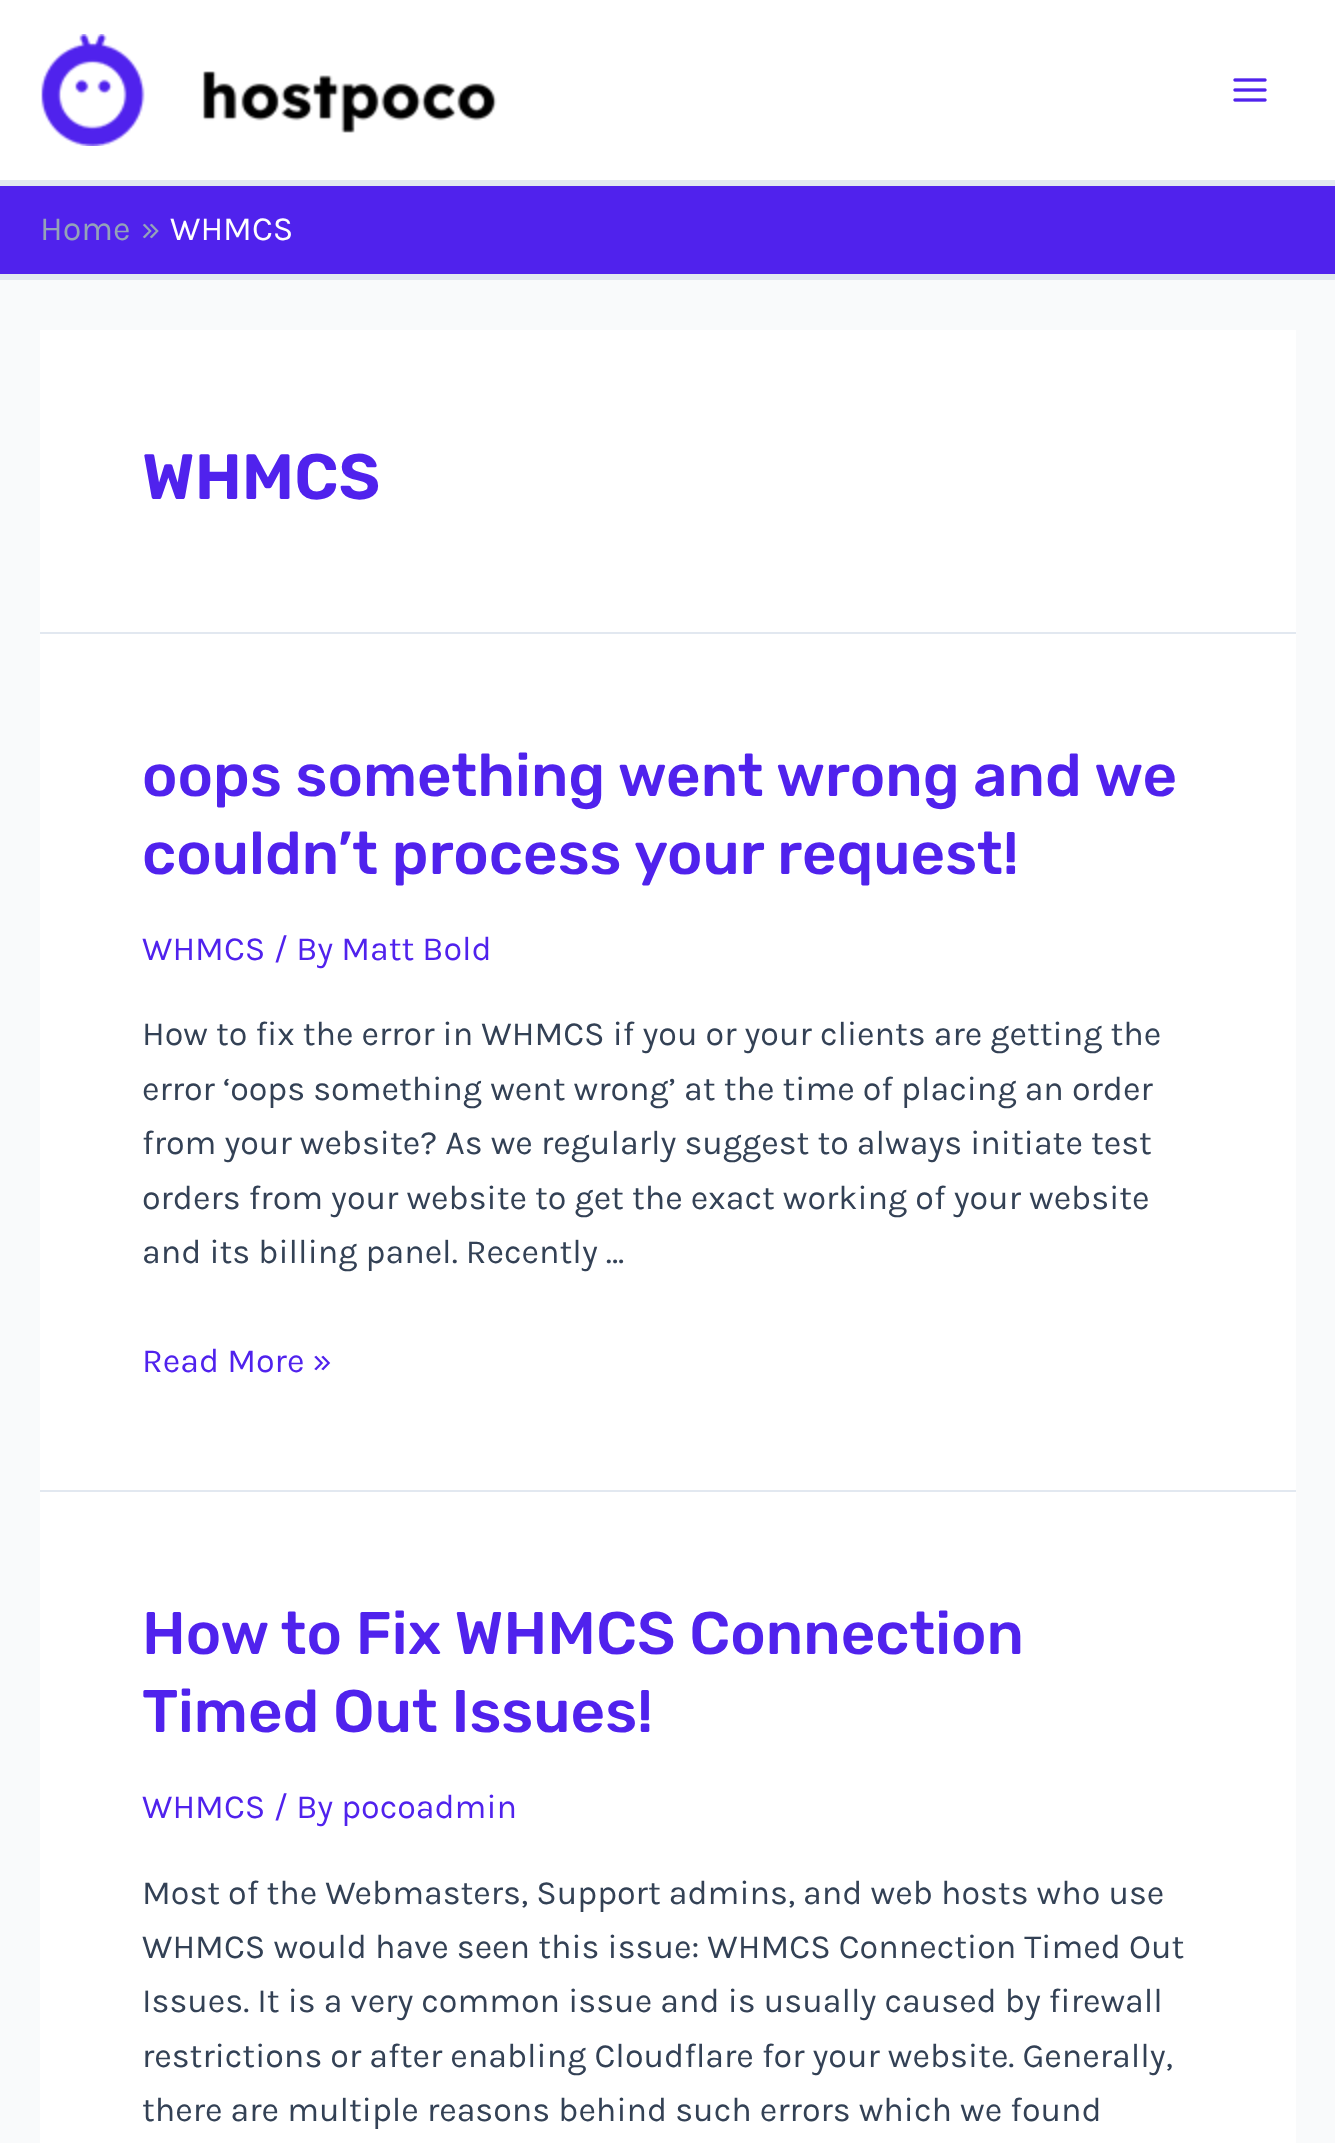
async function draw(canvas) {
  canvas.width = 1335;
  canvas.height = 2143;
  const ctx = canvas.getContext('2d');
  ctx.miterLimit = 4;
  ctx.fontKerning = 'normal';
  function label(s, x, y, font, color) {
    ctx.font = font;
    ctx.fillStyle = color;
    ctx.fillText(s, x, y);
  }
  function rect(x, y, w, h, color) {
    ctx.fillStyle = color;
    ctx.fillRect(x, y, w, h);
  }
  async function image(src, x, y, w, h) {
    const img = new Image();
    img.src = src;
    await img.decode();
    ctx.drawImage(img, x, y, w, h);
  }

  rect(0, 0, 1335, 2143, '#f9fafb');
  rect(0, 0, 1335, 180, '#fff');
  rect(0, 180, 1335, 6, '#e2e8f0');
  await image('assets/img1.png', 41, 34, 456, 112);
  await image('assets/img2.png', 1233, 78, 34, 24);
  rect(0, 186, 1335, 88, '#5022ed');
  rect(0, 274, 1335, 6, '#e2e8f0');
  label('Home', 40, 240, '34px Karla', '#94a3b8');
  label('»', 141, 240, '34px Karla', '#94a3b8');
  label('WHMCS', 170, 240, '34px Karla', '#fff');
  rect(40, 330, 1256, 302, '#fff');
  rect(40, 632, 1256, 2, '#e2e8f0');
  label('WHMCS', 142, 499, '600 64px Rubik', '#5022ed');
  rect(40, 634, 1256, 856, '#fff');
  rect(40, 1490, 1256, 2, '#e2e8f0');
  label('oops something went wrong and we', 142, 796, '500 60px Rubik', '#5022ed');
  label('couldn’t process your request!', 142, 874, '500 60px Rubik', '#5022ed');
  label('WHMCS / By Matt Bold', 142, 960, '34px Karla', '#5022ed');
  label('How to fix the error in WHMCS if you or your clients are getting the', 142, 1045, '34px Karla', '#334155');
  label('error ‘oops something went wrong’ at the time of placing an order', 142, 1100, '34px Karla', '#334155');
  label('from your website? As we regularly suggest to always initiate test', 142, 1154, '34px Karla', '#334155');
  label('orders from your website to get the exact working of your website', 142, 1209, '34px Karla', '#334155');
  label('and its billing panel. Recently …', 142, 1263, '34px Karla', '#334155');
  label('Read More »', 142, 1372, '34px Karla', '#5022ed');
  rect(40, 1492, 1256, 651, '#fff');
  label('How to Fix WHMCS Connection', 142, 1654, '500 60px Rubik', '#5022ed');
  label('Timed Out Issues!', 142, 1732, '500 60px Rubik', '#5022ed');
  label('WHMCS / By pocoadmin', 142, 1818, '34px Karla', '#5022ed');
  label('Most of the Webmasters, Support admins, and web hosts who use', 142, 1904, '34px Karla', '#334155');
  label('WHMCS would have seen this issue: WHMCS Connection Timed Out', 142, 1958, '34px Karla', '#334155');
  label('Issues. It is a very common issue and is usually caused by firewall', 142, 2012, '34px Karla', '#334155');
  label('restrictions or after enabling Cloudflare for your website. Generally,', 142, 2067, '34px Karla', '#334155');
  label('there are multiple reasons behind such errors which we found', 142, 2121, '34px Karla', '#334155');
}

draw(document.querySelector('canvas'));
